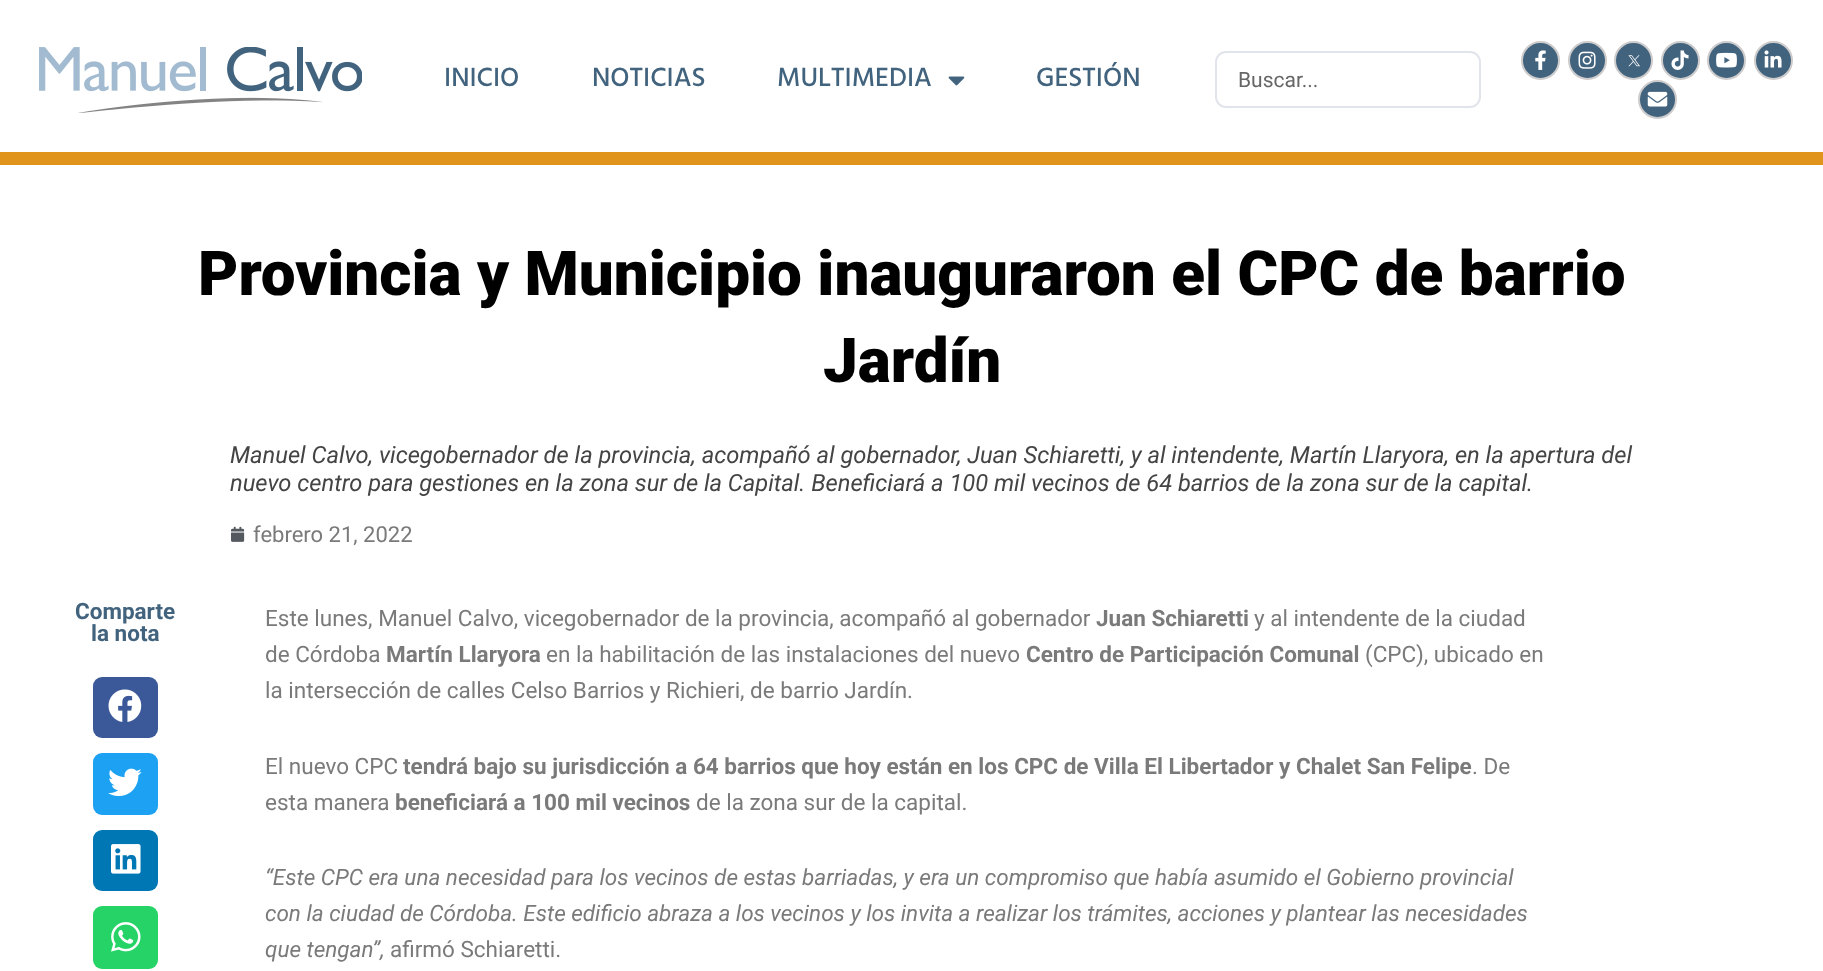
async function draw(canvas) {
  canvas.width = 1823;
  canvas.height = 971;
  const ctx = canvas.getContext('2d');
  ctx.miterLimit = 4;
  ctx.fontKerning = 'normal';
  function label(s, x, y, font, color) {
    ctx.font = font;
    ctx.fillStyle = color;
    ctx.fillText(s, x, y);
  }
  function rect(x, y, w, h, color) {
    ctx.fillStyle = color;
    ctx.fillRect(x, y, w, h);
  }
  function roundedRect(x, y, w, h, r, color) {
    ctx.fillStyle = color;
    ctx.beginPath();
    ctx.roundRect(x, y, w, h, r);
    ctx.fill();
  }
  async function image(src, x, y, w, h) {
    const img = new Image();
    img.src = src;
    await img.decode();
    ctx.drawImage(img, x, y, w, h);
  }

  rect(0, 0, 1823, 971, '#fff');
  rect(0, 152, 1823, 13, '#e0941b');
  await image('assets/img1.png', 39, 47, 323, 66);
  label('INICIO', 444, 86, '500 27px Hind', '#42637e');
  label('NOTICIAS', 592, 86, '500 27px Hind', '#42637e');
  label('MULTIMEDIA', 777, 86, '500 27px Hind', '#42637e');
  await image('assets/img2.png', 948, 76, 17, 10);
  label('GESTIÓN', 1036, 86, '500 27px Hind', '#42637e');
  ctx.beginPath();
  ctx.roundRect(1216, 52, 264, 55, 10);
  ctx.strokeStyle = '#e1e5eb';
  ctx.lineWidth = 2;
  ctx.stroke();
  label('Buscar...', 1238, 87, '21px Roboto', '#666');
  ctx.fillStyle = '#42637e';
  ctx.beginPath();
  ctx.arc(1540.5, 60.5, 18.5, 0, 2 * Math.PI);
  ctx.fill();
  ctx.strokeStyle = '#cdcbcb';
  ctx.stroke();
  await image('assets/img3.png', 1535, 50, 11, 20);
  ctx.beginPath();
  ctx.arc(1587.5, 60.5, 18.5, 0, 2 * Math.PI);
  ctx.fill();
  ctx.stroke();
  await image('assets/img4.png', 1578, 51, 18, 18);
  ctx.beginPath();
  ctx.arc(1633.5, 60.5, 18.5, 0, 2 * Math.PI);
  ctx.fill();
  ctx.stroke();
  await image('assets/img5.png', 1628, 55, 12, 12);
  ctx.beginPath();
  ctx.arc(1680.5, 60.5, 18.5, 0, 2 * Math.PI);
  ctx.fill();
  ctx.stroke();
  await image('assets/img6.png', 1671, 50, 18, 20);
  ctx.beginPath();
  ctx.arc(1726.5, 60.5, 18.5, 0, 2 * Math.PI);
  ctx.fill();
  ctx.stroke();
  await image('assets/img7.png', 1716, 52, 21, 16);
  ctx.beginPath();
  ctx.arc(1773.5, 60.5, 18.5, 0, 2 * Math.PI);
  ctx.fill();
  ctx.stroke();
  await image('assets/img8.png', 1764, 50, 18, 18);
  ctx.beginPath();
  ctx.arc(1657.5, 99.5, 18.5, 0, 2 * Math.PI);
  ctx.fill();
  ctx.stroke();
  await image('assets/img9.png', 1647, 91, 21, 16);
  label('Provincia y Municipio inauguraron el CPC de barrio', 198, 295, '900 62px Roboto', '#000');
  label('Jardín', 823, 382, '900 62px Roboto', '#000');
  label('Manuel Calvo, vicegobernador de la provincia, acompañó al gobernador, Juan Schiaretti, y al intendente, Martín Llaryora, en la apertura del', 230, 463, 'italic 23.7px Roboto', '#444');
  label('nuevo centro para gestiones en la zona sur de la Capital. Beneficiará a 100 mil vecinos de 64 barrios de la zona sur de la capital.', 230, 491, 'italic 23.7px Roboto', '#444');
  await image('assets/img10.png', 231, 526, 14, 16);
  label('febrero 21, 2022', 253, 542, '22px Roboto', '#7a7a7a');
  label('Comparte', 75, 619, 'bold 22.5px Roboto', '#42637e');
  label('la nota', 91, 641, 'bold 22.5px Roboto', '#42637e');
  roundedRect(93, 677, 65, 61, 9, '#3b5998');
  await image('assets/img11.png', 108, 689, 34, 33);
  roundedRect(93, 753, 65, 62, 9, '#1da1f2');
  await image('assets/img12.png', 108, 768, 34, 29);
  roundedRect(93, 830, 65, 61, 9, '#0077b5');
  await image('assets/img13.png', 111, 844, 30, 30);
  roundedRect(93, 906, 65, 63, 9, '#25d366');
  await image('assets/img14.png', 111, 922, 30, 30);
  label('Este lunes, Manuel Calvo, vicegobernador de la provincia, acompañó al gobernador', 265, 626, '22.5px Roboto', '#7a7a7a');
  label('Juan Schiaretti', 1096, 626, 'bold 22.5px Roboto', '#7a7a7a');
  label('y al intendente de la ciudad', 1254, 626, '22.5px Roboto', '#7a7a7a');
  label('de Córdoba', 265, 662, '22.5px Roboto', '#7a7a7a');
  label('Martín Llaryora', 386, 662, 'bold 22.5px Roboto', '#7a7a7a');
  label('en la habilitación de las instalaciones del nuevo', 546, 662, '22.5px Roboto', '#7a7a7a');
  label('Centro de Participación Comunal', 1026, 662, 'bold 22.5px Roboto', '#7a7a7a');
  label('(CPC), ubicado en', 1365, 662, '22.5px Roboto', '#7a7a7a');
  label('la intersección de calles Celso Barrios y Richieri, de barrio Jardín.', 265, 698, '22.5px Roboto', '#7a7a7a');
  label('El nuevo CPC', 265, 774, '22.5px Roboto', '#7a7a7a');
  label('tendrá bajo su jurisdicción a 64 barrios que hoy están en los CPC de Villa El Libertador y Chalet San Felipe', 403, 774, 'bold 22.5px Roboto', '#7a7a7a');
  label('. De', 1472, 774, '22.5px Roboto', '#7a7a7a');
  label('esta manera', 265, 810, '22.5px Roboto', '#7a7a7a');
  label('beneficiará a 100 mil vecinos', 395, 810, 'bold 22.5px Roboto', '#7a7a7a');
  label('de la zona sur de la capital.', 696, 810, '22.5px Roboto', '#7a7a7a');
  label('“Este CPC era una necesidad para los vecinos de estas barriadas, y era un compromiso que había asumido el Gobierno provincial', 265, 885, 'italic 22.5px Roboto', '#7a7a7a');
  label('con la ciudad de Córdoba. Este edificio abraza a los vecinos y los invita a realizar los trámites, acciones y plantear las necesidades', 265, 921, 'italic 22.5px Roboto', '#7a7a7a');
  label('que tengan”,', 265, 957, 'italic 22.5px Roboto', '#7a7a7a');
  label('afirmó Schiaretti.', 390, 957, '22.5px Roboto', '#7a7a7a');
}

draw(document.querySelector('canvas'));
